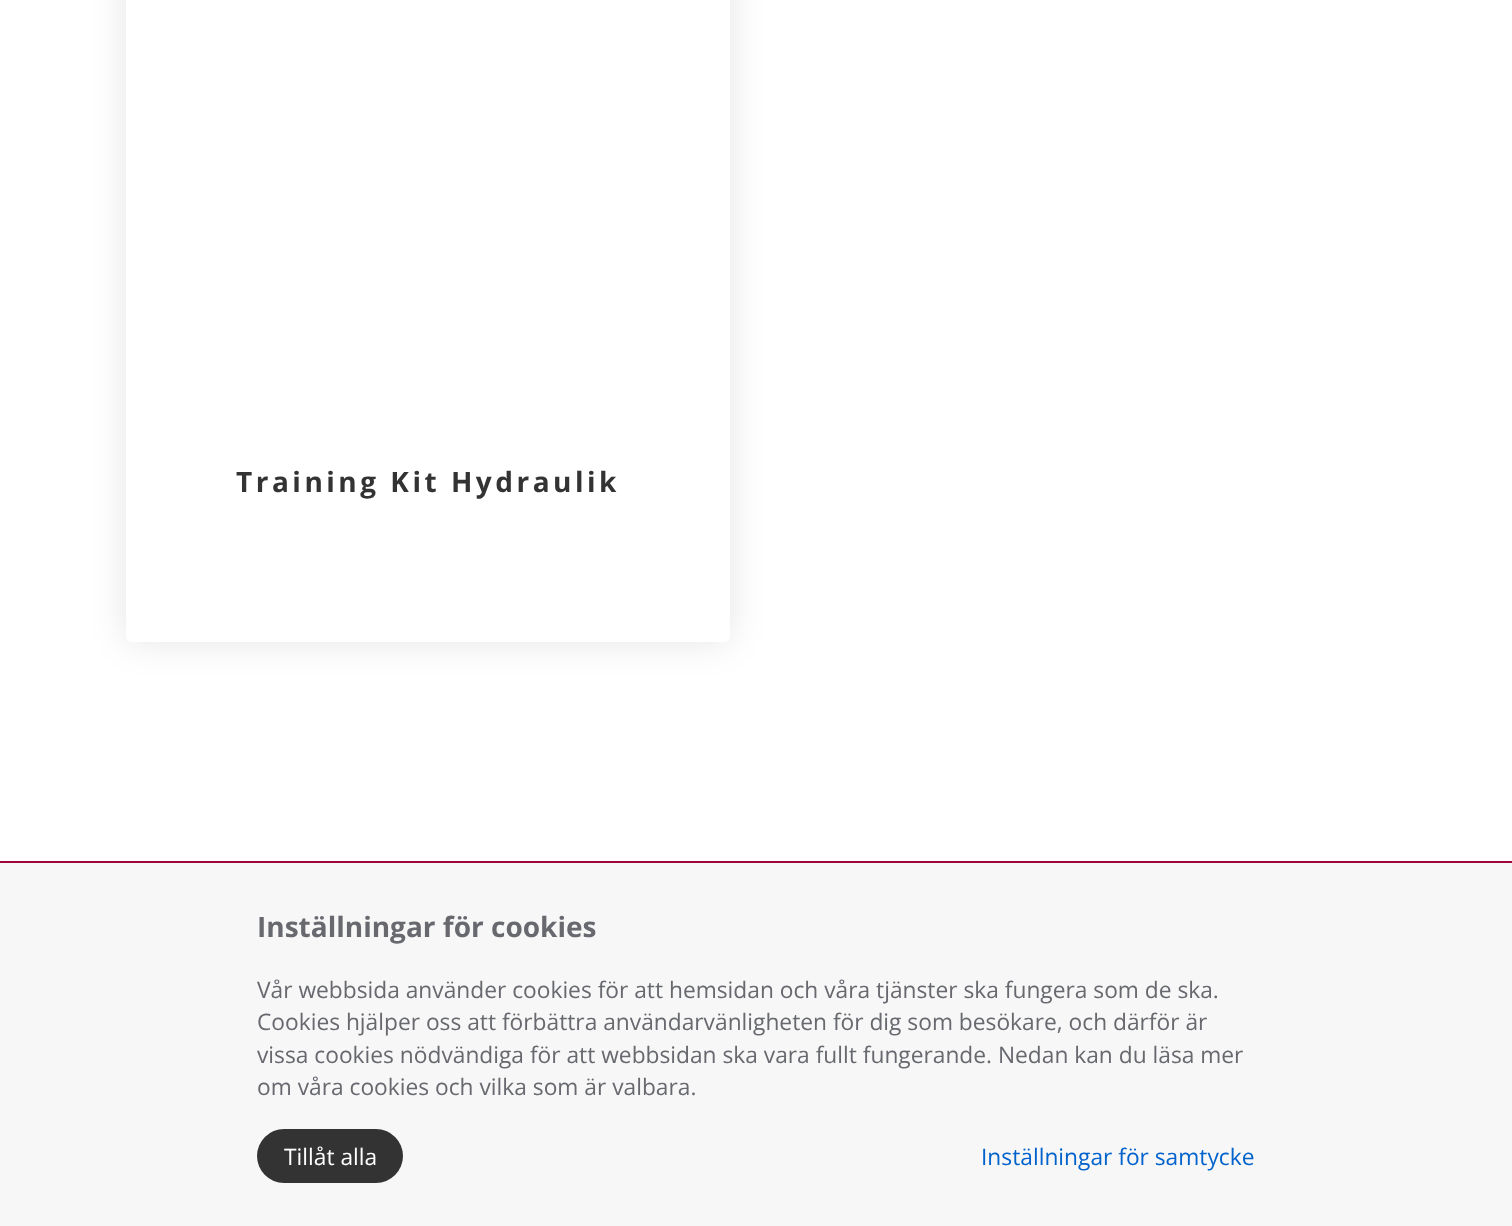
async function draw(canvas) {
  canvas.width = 1512;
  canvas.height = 1226;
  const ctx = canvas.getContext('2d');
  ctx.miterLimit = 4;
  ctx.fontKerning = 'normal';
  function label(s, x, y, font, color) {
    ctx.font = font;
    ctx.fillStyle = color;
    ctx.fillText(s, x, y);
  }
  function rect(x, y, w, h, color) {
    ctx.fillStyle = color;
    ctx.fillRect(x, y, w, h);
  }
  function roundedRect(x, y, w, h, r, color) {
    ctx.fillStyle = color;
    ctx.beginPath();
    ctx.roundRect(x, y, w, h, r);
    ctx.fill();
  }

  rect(0, 0, 1512, 1226, '#fff');
  ctx.fillStyle = '#0000001a';
  ctx.filter = 'blur(17.5px)';
  ctx.beginPath();
  ctx.roundRect(126, -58, 604, 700, 5);
  ctx.fill();
  ctx.filter = 'none';
  roundedRect(126, -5, 604, 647, 5, '#fff');
  ctx.letterSpacing = '3.5px';
  label('Training Kit Hydraulik', 236, 492, 'bold 28px Open Sans', '#333');
  rect(0, 861, 1512, 2, '#9f0538');
  rect(0, 863, 1512, 363, '#f7f7f7');
  ctx.letterSpacing = '0px';
  label('Inställningar för cookies', 257, 937, 'bold 28px Open Sans', '#67696f');
  label('Vår webbsida använder cookies för att hemsidan och våra tjänster ska fungera som de ska.', 257, 998, '22.75px Open Sans', '#67696f');
  label('Cookies hjälper oss att förbättra användarvänligheten för dig som besökare, och därför är', 257, 1030, '22.75px Open Sans', '#67696f');
  label('vissa cookies nödvändiga för att webbsidan ska vara fullt fungerande. Nedan kan du läsa mer', 257, 1063, '22.75px Open Sans', '#67696f');
  label('om våra cookies och vilka som är valbara.', 257, 1095, '22.75px Open Sans', '#67696f');
  roundedRect(257, 1129, 146, 54, 27, '#333');
  label('Tillåt alla', 284, 1165, '22.75px Open Sans', '#fff');
  label('Inställningar för samtycke', 981, 1165, '22.75px Open Sans', '#0062cc');
}

draw(document.querySelector('canvas'));
